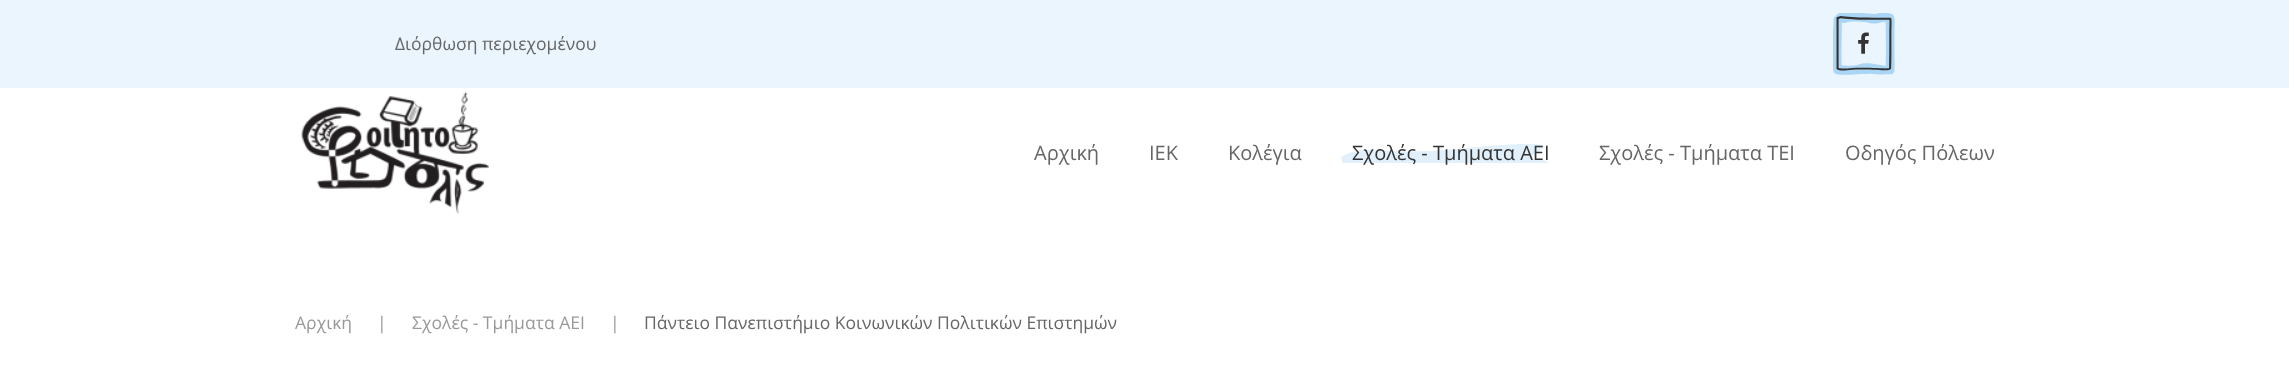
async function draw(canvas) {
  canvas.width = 2289;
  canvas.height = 386;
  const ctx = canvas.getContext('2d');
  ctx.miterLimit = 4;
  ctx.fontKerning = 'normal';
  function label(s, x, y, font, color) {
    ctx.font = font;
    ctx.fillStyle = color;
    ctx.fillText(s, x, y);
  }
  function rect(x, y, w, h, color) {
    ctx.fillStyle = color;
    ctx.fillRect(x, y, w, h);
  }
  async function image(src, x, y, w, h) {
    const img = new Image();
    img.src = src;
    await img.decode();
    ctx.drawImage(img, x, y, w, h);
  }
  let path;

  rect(0, 0, 2289, 386, '#fff');
  rect(0, 0, 2289, 88, '#ebf5fd');
  label('Διόρθωση περιεχομένου', 395, 50, '17.5px Open Sans', '#666');
  await image('assets/img1.png', 1833, 13, 62, 62);
  await image('assets/img2.png', 1858, 32, 11, 22);
  await image('assets/img3.png', 301, 92, 188, 122);
  label('Αρχική', 1034, 160, '20px Open Sans', '#666');
  label('ΙΕΚ', 1149, 160, '20px Open Sans', '#666');
  label('Κολέγια', 1228, 160, '20px Open Sans', '#666');
  ctx.save();
  ctx.beginPath();
  ctx.rect(1339, 144, 222, 19);
  ctx.clip();
  ctx.fillStyle = '#e1f0fb';
  path = new Path2D('M1341 157C1350 151 1363 149 1381 150C1406 153 1435 151 1457 149C1478 147 1476 147 1502 145C1528 143 1550 143 1542 149C1534 154 1524 160 1538 160C1552 160 1545 164 1553 168C1562 172 1561 189 1553 196C1546 203 1548 205 1527 205H1403C1380 205 1354 201 1351 196C1349 193 1346 180 1341 157Z');
  ctx.fill(path);
  ctx.restore();
  label('Σχολές - Τμήματα ΑΕΙ', 1352, 160, '20px Open Sans', '#333');
  label('Σχολές - Τμήματα ΤΕΙ', 1599, 160, '20px Open Sans', '#666');
  label('Οδηγός Πόλεων', 1845, 160, '20px Open Sans', '#666');
  label('Αρχική', 295, 329, '17.5px Open Sans', '#999');
  label('|', 377, 329, '17.5px Open Sans', '#999');
  label('Σχολές - Τμήματα ΑΕΙ', 412, 329, '17.5px Open Sans', '#999');
  label('|', 610, 329, '17.5px Open Sans', '#999');
  label('Πάντειο Πανεπιστήμιο Κοινωνικών Πολιτικών Επιστημών', 644, 329, '17.5px Open Sans', '#666');
}

draw(document.querySelector('canvas'));
